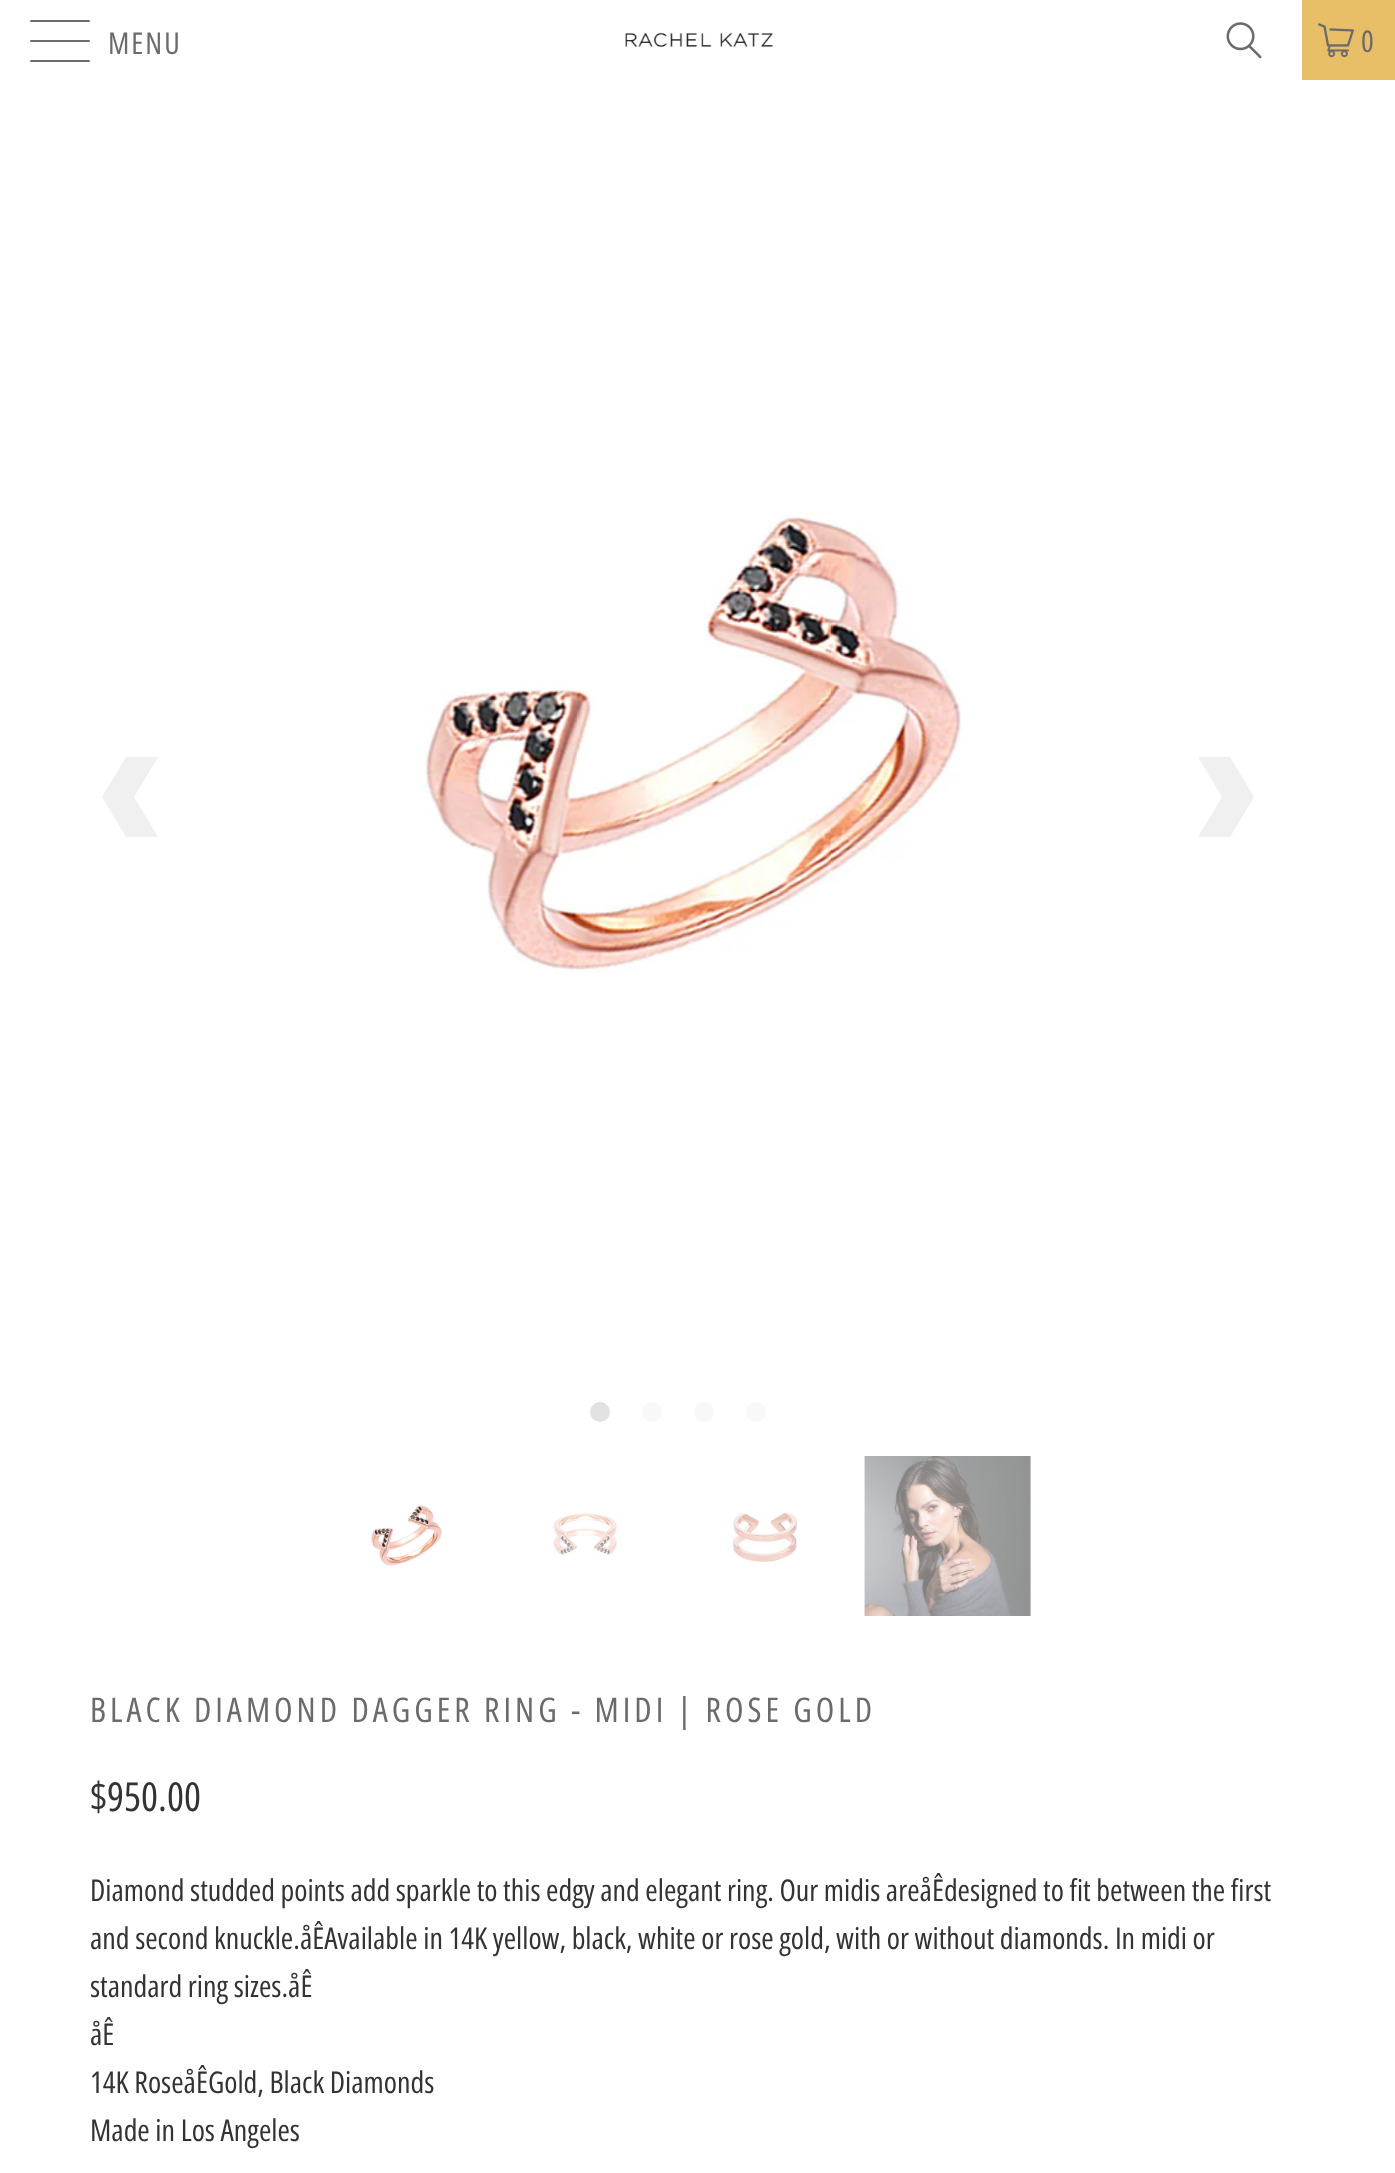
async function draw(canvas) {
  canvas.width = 1395;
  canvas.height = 2173;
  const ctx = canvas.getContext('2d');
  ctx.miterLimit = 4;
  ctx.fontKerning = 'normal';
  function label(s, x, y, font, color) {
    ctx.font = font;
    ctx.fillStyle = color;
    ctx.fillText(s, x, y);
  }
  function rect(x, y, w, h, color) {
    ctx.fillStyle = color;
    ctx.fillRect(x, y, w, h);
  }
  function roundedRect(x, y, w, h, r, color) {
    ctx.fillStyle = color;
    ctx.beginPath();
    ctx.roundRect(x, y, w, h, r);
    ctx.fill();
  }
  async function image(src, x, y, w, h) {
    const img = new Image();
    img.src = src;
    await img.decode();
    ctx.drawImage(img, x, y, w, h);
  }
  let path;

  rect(0, 0, 1395, 2173, '#fff');
  roundedRect(30, 20, 60, 2, 1, '#6c6a6a');
  roundedRect(30, 40, 60, 2, 1, '#6c6a6a');
  roundedRect(30, 60, 60, 2, 1, '#6c6a6a');
  ctx.letterSpacing = '2px';
  label('MENU', 108, 54, '30px Open Sans Condensed', '#6c6a6a');
  await image('assets/img1.png', 625, 32, 148, 16);
  await image('assets/img2.png', 1226, 22, 36, 37);
  rect(1302, 0, 93, 80, '#e8bf67');
  await image('assets/img3.png', 1318, 23, 36, 35);
  label('0', 1361, 52, '30px Open Sans Condensed', '#6c6a6a');
  ctx.fillStyle = '#f0f0f0';
  path = new Path2D('M102 797L126 837H158L134 797L158 757H126Z');
  ctx.fill(path);
  await image('assets/img4.png', 422, 512, 539, 462);
  path = new Path2D('M1254 797L1230 757H1198L1222 797L1198 837H1230Z');
  ctx.fill(path);
  ctx.fillStyle = '#e1e1e1';
  ctx.beginPath();
  ctx.arc(600, 1412, 10, 0, 2 * Math.PI);
  ctx.fill();
  ctx.fillStyle = '#f8f8f8';
  ctx.beginPath();
  ctx.arc(652, 1412, 10, 0, 2 * Math.PI);
  ctx.fill();
  ctx.beginPath();
  ctx.arc(704, 1412, 10, 0, 2 * Math.PI);
  ctx.fill();
  ctx.beginPath();
  ctx.arc(756, 1412, 10, 0, 2 * Math.PI);
  ctx.fill();
  await image('assets/img5.png', 371, 1505, 71, 61);
  await image('assets/img6.png', 553, 1513, 64, 43);
  await image('assets/img7.png', 733, 1512, 65, 50);
  await image('assets/img8.png', 864, 1456, 167, 160);
  ctx.letterSpacing = '4px';
  label('BLACK DIAMOND DAGGER RING - MIDI | ROSE GOLD', 90, 1722, '34px Open Sans Condensed', '#6c6a6a');
  ctx.letterSpacing = '0px';
  label('$950.00', 90, 1811, '40px Open Sans Condensed', '#333');
  label('Diamond studded points add sparkle to this edgy and elegant ring. Our midis areåÊdesigned to fit between the first', 90, 1901, '30px Open Sans Condensed', '#333');
  label('and second knuckle.åÊAvailable in 14K yellow, black, white or rose gold, with or without diamonds. In midi or', 90, 1949, '30px Open Sans Condensed', '#333');
  label('standard ring sizes.åÊ', 90, 1997, '30px Open Sans Condensed', '#333');
  label('åÊ', 90, 2045, '30px Open Sans Condensed', '#333');
  label('14K RoseåÊGold, Black Diamonds', 90, 2093, '30px Open Sans Condensed', '#333');
  label('Made in Los Angeles', 90, 2141, '30px Open Sans Condensed', '#333');
}

draw(document.querySelector('canvas'));
